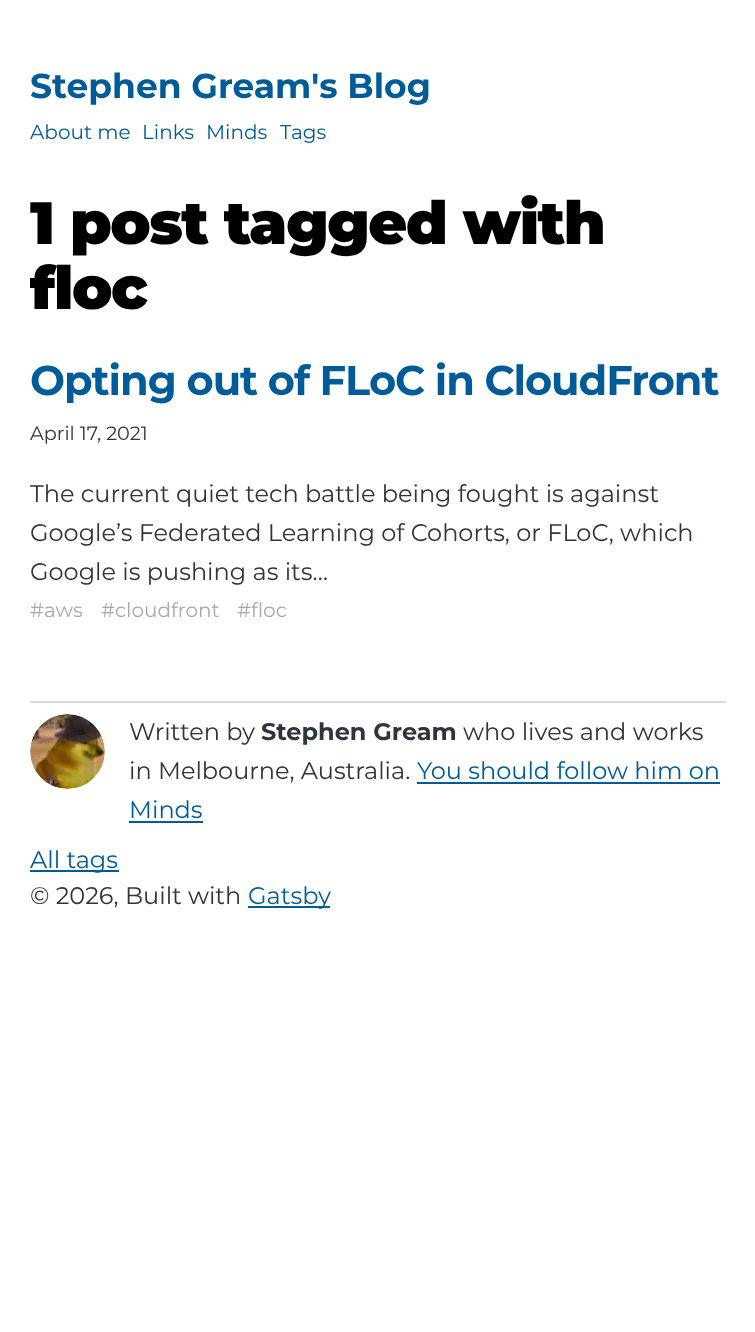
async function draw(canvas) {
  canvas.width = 755;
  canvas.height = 1332;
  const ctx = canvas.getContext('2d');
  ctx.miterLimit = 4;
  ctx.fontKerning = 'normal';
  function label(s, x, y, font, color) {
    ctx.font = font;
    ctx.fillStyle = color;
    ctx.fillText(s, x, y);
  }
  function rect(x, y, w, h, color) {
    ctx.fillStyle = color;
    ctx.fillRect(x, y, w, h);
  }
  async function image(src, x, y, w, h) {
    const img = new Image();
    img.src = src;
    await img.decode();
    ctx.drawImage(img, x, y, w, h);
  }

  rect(0, 0, 755, 1332, '#fff');
  label('Stephen Gream\'s Blog', 30, 98, 'bold 34.5px Montserrat', '#005b99');
  label('About me', 30, 139, '20px Montserrat', '#005b99');
  label('Links', 142, 139, '20px Montserrat', '#005b99');
  label('Minds', 206, 139, '20px Montserrat', '#005b99');
  label('Tags', 280, 139, '20px Montserrat', '#005b99');
  ctx.letterSpacing = '-1.5px';
  label('1 post tagged with', 30, 244, '900 59.75px Montserrat', '#000');
  label('floc', 30, 309, '900 59.75px Montserrat', '#000');
  ctx.letterSpacing = '-1.05px';
  label('Opting out of FLoC in CloudFront', 30, 395, 'bold 41.5px Montserrat', '#005b99');
  ctx.letterSpacing = '0px';
  label('April 17, 2021', 30, 440, '19.25px Montserrat', '#2e353f');
  label('The current quiet tech battle being fought is against', 30, 502, '24px Montserrat', '#2e353f');
  label('Google’s Federated Learning of Cohorts, or FLoC, which', 30, 541, '24px Montserrat', '#2e353f');
  label('Google is pushing as its…', 30, 580, '24px Montserrat', '#2e353f');
  label('#aws', 30, 617, '20px Montserrat', '#a9a9a9');
  label('#cloudfront', 101, 617, '20px Montserrat', '#a9a9a9');
  label('#floc', 237, 617, '20px Montserrat', '#a9a9a9');
  rect(30, 701, 696, 2, '#d1dce5');
  await image('assets/img1.png', 30, 714, 75, 75);
  label('Written by', 129, 740, '24px Montserrat', '#2e353f');
  label('Stephen Gream', 261, 740, 'bold 24px Montserrat', '#2e353f');
  label('who lives and works', 463, 740, '24px Montserrat', '#2e353f');
  label('in Melbourne, Australia.', 129, 779, '24px Montserrat', '#2e353f');
  label('You should follow him on', 417, 779, '24px Montserrat', '#005b99');
  rect(417, 782, 303, 2, '#005b99');
  label('Minds', 129, 818, '24px Montserrat', '#005b99');
  rect(129, 821, 74, 2, '#005b99');
  rect(30, 870, 89, 2, '#005b99');
  label('All tags', 30, 868, '24px Montserrat', '#005b99');
  label('© 2026, Built with', 30, 904, '24px Montserrat', '#2e353f');
  rect(248, 906, 82, 2, '#005b99');
  label('Gatsby', 248, 904, '24px Montserrat', '#005b99');
}

draw(document.querySelector('canvas'));
